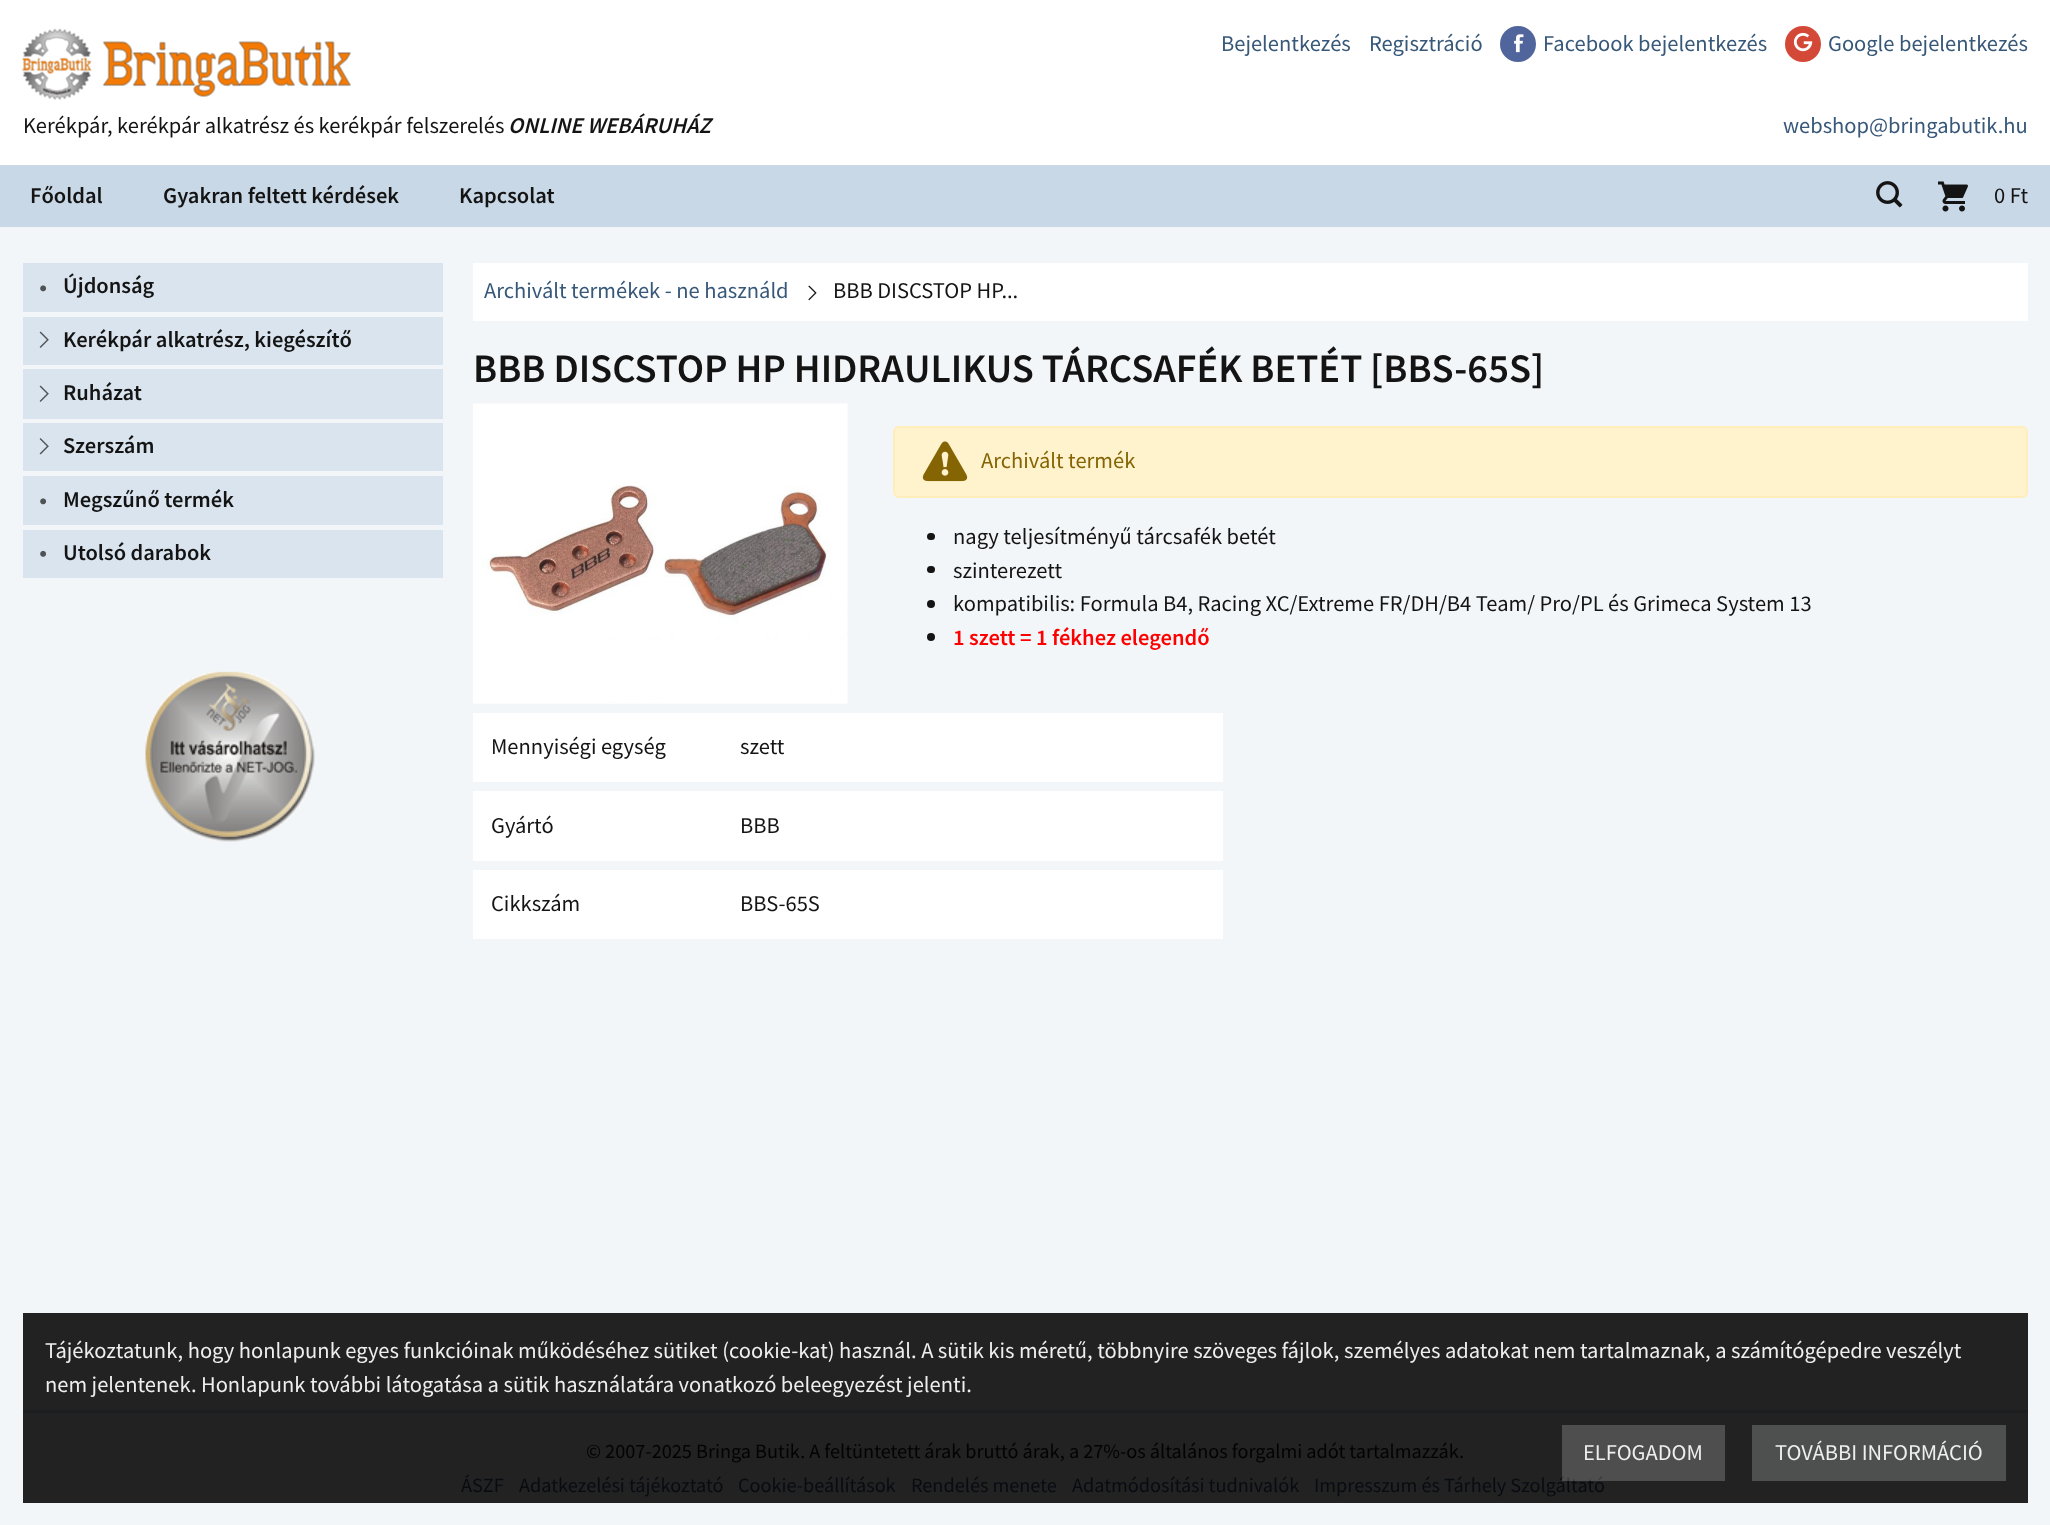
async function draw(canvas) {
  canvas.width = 2050;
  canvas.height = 1525;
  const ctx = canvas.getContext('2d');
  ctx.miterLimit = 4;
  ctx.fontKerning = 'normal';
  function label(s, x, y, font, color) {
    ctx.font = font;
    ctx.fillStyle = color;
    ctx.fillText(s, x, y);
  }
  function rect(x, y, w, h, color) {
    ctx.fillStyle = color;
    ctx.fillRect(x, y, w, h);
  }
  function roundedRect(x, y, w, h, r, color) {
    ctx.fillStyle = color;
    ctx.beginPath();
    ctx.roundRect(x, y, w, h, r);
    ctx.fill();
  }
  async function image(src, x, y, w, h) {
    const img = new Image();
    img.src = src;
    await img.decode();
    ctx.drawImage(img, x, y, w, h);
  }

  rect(0, 0, 2050, 1525, '#f3f6f9');
  rect(23, 1313, 2005, 190, '#222223');
  rect(0, 0, 2050, 165, '#fff');
  await image('assets/img1.png', 22, 28, 329, 72);
  label('Bejelentkezés', 1221, 51, '22.5px Source Sans Pro', '#375879');
  label('Regisztráció', 1369, 51, '22.5px Source Sans Pro', '#375879');
  ctx.fillStyle = '#4f659b';
  ctx.beginPath();
  ctx.arc(1518, 44, 18, 0, 2 * Math.PI);
  ctx.fill();
  await image('assets/img2.png', 1514, 34, 10, 19);
  label('Facebook bejelentkezés', 1543, 51, '22.5px Source Sans Pro', '#375879');
  ctx.fillStyle = '#d34836';
  ctx.beginPath();
  ctx.arc(1803, 44, 18, 0, 2 * Math.PI);
  ctx.fill();
  await image('assets/img3.png', 1793, 32, 20, 20);
  label('Google bejelentkezés', 1828, 51, '22.5px Source Sans Pro', '#375879');
  label('Kerékpár, kerékpár alkatrész és kerékpár felszerelés', 23, 133, '22.5px Source Sans Pro', '#141414');
  label('ONLINE WEBÁRUHÁZ', 508, 133, 'italic 600 22.5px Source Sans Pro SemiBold', '#141414');
  label('webshop@bringabutik.hu', 1783, 133, '22.5px Source Sans Pro', '#375879');
  rect(0, 165, 2050, 62, '#c9d8e6');
  label('Főoldal', 30, 203, '600 22.5px Source Sans Pro SemiBold', '#141414');
  label('Gyakran feltett kérdések', 163, 203, '600 22.5px Source Sans Pro SemiBold', '#141414');
  label('Kapcsolat', 459, 203, '600 22.5px Source Sans Pro SemiBold', '#141414');
  await image('assets/img4.png', 1876, 181, 27, 27);
  await image('assets/img5.png', 1938, 181, 30, 31);
  label('0 Ft', 1994, 203, '22.5px Source Sans Pro', '#141414');
  rect(23, 263, 420, 49, '#dae4ee');
  await image('assets/img6.png', 40, 285, 7, 7);
  label('Újdonság', 63, 293, '600 22.5px Source Sans Pro SemiBold', '#141414');
  rect(23, 317, 420, 48, '#dae4ee');
  await image('assets/img7.png', 39, 331, 10, 17);
  label('Kerékpár alkatrész, kiegészítő', 63, 347, '600 22.5px Source Sans Pro SemiBold', '#141414');
  rect(23, 369, 420, 50, '#dae4ee');
  await image('assets/img7.png', 39, 385, 10, 17);
  label('Ruházat', 63, 400, '600 22.5px Source Sans Pro SemiBold', '#141414');
  rect(23, 423, 420, 48, '#dae4ee');
  await image('assets/img8.png', 39, 438, 10, 17);
  label('Szerszám', 63, 453, '600 22.5px Source Sans Pro SemiBold', '#141414');
  rect(23, 476, 420, 49, '#dae4ee');
  await image('assets/img6.png', 40, 498, 7, 7);
  label('Megszűnő termék', 63, 507, '600 22.5px Source Sans Pro SemiBold', '#141414');
  rect(23, 530, 420, 48, '#dae4ee');
  await image('assets/img9.png', 40, 550, 6, 7);
  label('Utolsó darabok', 63, 560, '600 22.5px Source Sans Pro SemiBold', '#141414');
  await image('assets/img10.png', 145, 671, 170, 171);
  rect(473, 263, 1555, 58, '#fff');
  label('Archivált termékek - ne használd', 484, 298, '22.5px Source Sans Pro', '#375879');
  await image('assets/img11.png', 808, 285, 9, 16);
  label('BBB DISCSTOP HP...', 833, 298, '22.5px Source Sans Pro', '#141414');
  ctx.wordSpacing = '-0.25px';
  label('BBB DISCSTOP HP HIDRAULIKUS TÁRCSAFÉK BETÉT [BBS-65S]', 473, 382, '600 40.5px Source Sans Pro SemiBold', '#141414');
  await image('assets/img12.png', 473, 403, 375, 301);
  ctx.fillStyle = '#fff3cd';
  ctx.beginPath();
  ctx.roundRect(894, 427, 1133, 70, 5);
  ctx.fill();
  ctx.strokeStyle = '#ffeeba';
  ctx.lineWidth = 2;
  ctx.stroke();
  await image('assets/img13.png', 922, 441, 46, 41);
  ctx.wordSpacing = '0px';
  label('Archivált termék', 981, 468, '22.5px Source Sans Pro', '#856404');
  roundedRect(927, 533, 8, 7, 3.5, '#141414');
  label('nagy teljesítményű tárcsafék betét', 953, 544, '22.5px Source Sans Pro', '#141414');
  roundedRect(927, 566, 8, 7, 3.5, '#141414');
  label('szinterezett', 953, 578, '22.5px Source Sans Pro', '#141414');
  ctx.beginPath();
  ctx.arc(931, 604, 4, 0, 2 * Math.PI);
  ctx.fill();
  label('kompatibilis: Formula B4, Racing XC/Extreme FR/DH/B4 Team/ Pro/PL és Grimeca System 13', 953, 611, '22.5px Source Sans Pro', '#141414');
  ctx.beginPath();
  ctx.arc(931, 637, 4, 0, 2 * Math.PI);
  ctx.fill();
  label('1 szett = 1 fékhez elegendő', 953, 645, '600 22.5px Source Sans Pro SemiBold', '#f00');
  rect(473, 713, 750, 69, '#fff');
  label('Mennyiségi egység', 491, 754, '22.5px Source Sans Pro', '#141414');
  label('szett', 740, 754, '22.5px Source Sans Pro', '#141414');
  rect(473, 791, 750, 70, '#fff');
  label('Gyártó', 491, 833, '22.5px Source Sans Pro', '#141414');
  label('BBB', 740, 833, '22.5px Source Sans Pro', '#141414');
  rect(473, 870, 750, 69, '#fff');
  label('Cikkszám', 491, 911, '22.5px Source Sans Pro', '#141414');
  label('BBS-65S', 740, 911, '22.5px Source Sans Pro', '#141414');
  rect(23, 1410, 2005, 3, '#1c1e20');
  label('© 2007-2025 Bringa Butik. A feltüntetett árak bruttó árak, a 27%-os általános forgalmi adót tartalmazzák.', 586, 1458, '20.25px Source Sans Pro', '#030303');
  label('ÁSZF', 461, 1492, '20.25px Source Sans Pro', '#080c11');
  label('Adatkezelési tájékoztató', 519, 1492, '20.25px Source Sans Pro', '#080c11');
  label('Cookie-beállítások', 738, 1492, '20.25px Source Sans Pro', '#080c11');
  label('Rendelés menete', 911, 1492, '20.25px Source Sans Pro', '#080c11');
  label('Adatmódosítási tudnivalók', 1072, 1492, '20.25px Source Sans Pro', '#080c11');
  label('Impresszum és Tárhely Szolgáltató', 1314, 1492, '20.25px Source Sans Pro', '#080c11');
  label('Tájékoztatunk, hogy honlapunk egyes funkcióinak működéséhez sütiket (cookie-kat) használ. A sütik kis méretű, többnyire szöveges fájlok, személyes adatokat nem tartalmaznak, a számítógépedre veszélyt', 45, 1358, '22.5px Source Sans Pro', '#eee');
  label('nem jelentenek. Honlapunk további látogatása a sütik használatára vonatkozó beleegyezést jelenti.', 45, 1392, '22.5px Source Sans Pro', '#eee');
  rect(1562, 1425, 163, 56, '#ffffff33');
  label('ELFOGADOM', 1583, 1460, '22.5px Source Sans Pro', '#eee');
  rect(1752, 1425, 254, 56, '#4e4f4f');
  label('TOVÁBBI INFORMÁCIÓ', 1775, 1460, '22.5px Source Sans Pro', '#eee');
}

draw(document.querySelector('canvas'));
